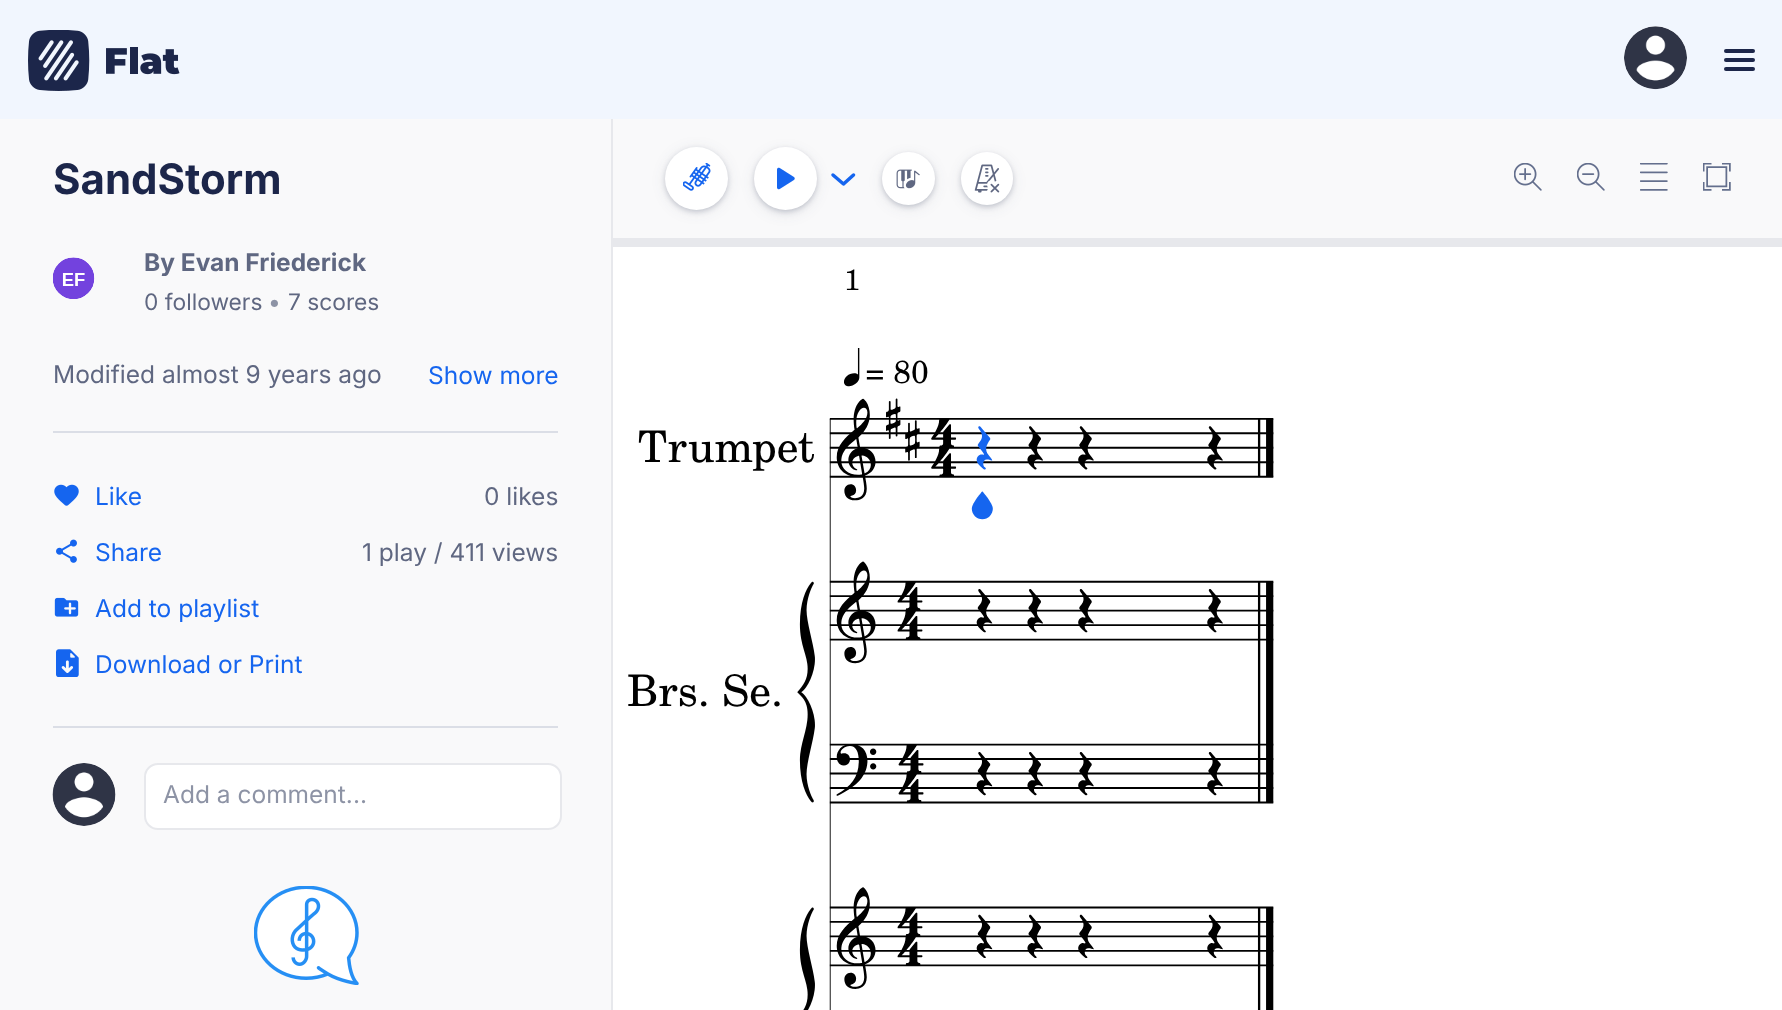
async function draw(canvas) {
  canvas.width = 1782;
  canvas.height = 1010;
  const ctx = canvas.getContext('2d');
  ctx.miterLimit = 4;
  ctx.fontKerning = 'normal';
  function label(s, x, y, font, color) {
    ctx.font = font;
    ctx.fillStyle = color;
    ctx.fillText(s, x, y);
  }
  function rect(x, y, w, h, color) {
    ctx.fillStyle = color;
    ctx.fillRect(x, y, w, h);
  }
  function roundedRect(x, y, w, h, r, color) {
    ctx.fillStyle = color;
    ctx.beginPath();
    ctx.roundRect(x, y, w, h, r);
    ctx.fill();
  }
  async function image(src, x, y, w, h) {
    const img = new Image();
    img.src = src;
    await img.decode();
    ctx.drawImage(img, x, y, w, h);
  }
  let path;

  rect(0, 0, 1782, 1010, '#fff');
  rect(0, 0, 1782, 119, '#f1f6fe');
  await image('assets/img1.png', 28, 30, 152, 61);
  ctx.fillStyle = '#fff';
  ctx.beginPath();
  ctx.arc(1655.5, 57.5, 31.5, 0, 2 * Math.PI);
  ctx.fill();
  await image('assets/img2.png', 1624, 26, 63, 64);
  roundedRect(1724, 49, 31, 4, 2, '#1c264a');
  roundedRect(1724, 58, 31, 4, 2, '#1c264a');
  roundedRect(1724, 67, 31, 4, 2, '#1c264a');
  rect(0, 119, 611, 891, '#f9f9fa');
  rect(611, 119, 2, 891, '#e7e8ec');
  label('SandStorm', 53, 194, 'bold 42px Inter', '#1c264a');
  ctx.fillStyle = '#fff';
  ctx.beginPath();
  ctx.arc(74, 278, 21, 0, 2 * Math.PI);
  ctx.fill();
  await image('assets/img3.png', 53, 257, 42, 42);
  label('By Evan Friederick', 144, 271, 'bold 24.5px Inter', '#5f6781');
  label('0 followers', 144, 310, '22.75px Inter', '#5f6781');
  label('•', 268, 310, '22.75px Inter', '#8d93a5');
  label('7 scores', 288, 310, '22.75px Inter', '#5f6781');
  label('Modified almost 9 years ago', 53, 383, '24.5px Inter', '#5f6781');
  label('Show more', 428, 384, '24.5px Inter', '#1565ef');
  rect(53, 431, 505, 2, '#dbdee6');
  await image('assets/img4.png', 54, 484, 25, 22);
  label('Like', 95, 505, '24.5px Inter', '#1565ef');
  label('0 likes', 484, 505, '24.5px Inter', '#5f6781');
  await image('assets/img5.png', 56, 539, 21, 24);
  label('Share', 95, 561, '24.5px Inter', '#1565ef');
  label('1 play / 411 views', 362, 561, '24.5px Inter', '#5f6781');
  await image('assets/img6.png', 54, 597, 25, 20);
  label('Add to playlist', 95, 617, '24.5px Inter', '#1565ef');
  await image('assets/img7.png', 56, 649, 23, 28);
  label('Download or Print', 95, 673, '24.5px Inter', '#1565ef');
  rect(53, 726, 505, 2, '#dbdee6');
  ctx.fillStyle = '#fff';
  ctx.beginPath();
  ctx.arc(84.5, 794.5, 31.5, 0, 2 * Math.PI);
  ctx.fill();
  await image('assets/img8.png', 52, 763, 64, 63);
  ctx.beginPath();
  ctx.roundRect(145, 764, 416, 65, 13);
  ctx.fill();
  ctx.strokeStyle = '#e7e8ec';
  ctx.lineWidth = 2;
  ctx.stroke();
  label('Add a comment...', 163, 803, '24.5px Inter', '#8d93a5');
  await image('assets/img9.png', 254, 886, 105, 99);
  rect(613, 119, 1169, 119, '#f9f9fa');
  ctx.fillStyle = '#28304f1a';
  ctx.filter = 'blur(7px)';
  ctx.beginPath();
  ctx.roundRect(665, 149, 63, 63, 31.5);
  ctx.fill();
  ctx.filter = 'none';
  ctx.fillStyle = '#28304f33';
  ctx.filter = 'blur(2.5px)';
  ctx.beginPath();
  ctx.roundRect(665, 149, 63, 63, 31.5);
  ctx.fill();
  ctx.filter = 'none';
  ctx.fillStyle = '#fff';
  ctx.beginPath();
  ctx.arc(696.5, 178.5, 31.5, 0, 2 * Math.PI);
  ctx.fill();
  await image('assets/img10.png', 683, 163, 28, 28);
  ctx.fillStyle = '#28304f33';
  ctx.filter = 'blur(2.5px)';
  ctx.beginPath();
  ctx.roundRect(754, 149, 63, 63, 31.5);
  ctx.fill();
  ctx.filter = 'none';
  ctx.fillStyle = '#28304f1a';
  ctx.filter = 'blur(7px)';
  ctx.beginPath();
  ctx.roundRect(754, 151, 63, 63, 31.5);
  ctx.fill();
  ctx.filter = 'none';
  ctx.fillStyle = '#fff';
  ctx.beginPath();
  ctx.arc(785.5, 178.5, 31.5, 0, 2 * Math.PI);
  ctx.fill();
  await image('assets/img11.png', 777, 167, 18, 23);
  path = new Path2D('M833 175L843.5 184L853.5 175');
  ctx.strokeStyle = '#1565ef';
  ctx.lineWidth = 3.5;
  ctx.lineCap = 'round';
  ctx.lineJoin = 'round';
  ctx.stroke(path);
  ctx.fillStyle = '#28304f33';
  ctx.filter = 'blur(2.5px)';
  ctx.beginPath();
  ctx.roundRect(882, 154, 53, 53, 26.5);
  ctx.fill();
  ctx.filter = 'none';
  ctx.fillStyle = '#28304f1a';
  ctx.filter = 'blur(7px)';
  ctx.beginPath();
  ctx.roundRect(882, 156, 53, 52, 26);
  ctx.fill();
  ctx.filter = 'none';
  ctx.fillStyle = '#fff';
  ctx.beginPath();
  ctx.arc(908.5, 178.5, 26.5, 0, 2 * Math.PI);
  ctx.fill();
  await image('assets/img12.png', 896, 169, 24, 20);
  ctx.fillStyle = '#28304f33';
  ctx.filter = 'blur(2.5px)';
  ctx.beginPath();
  ctx.roundRect(961, 154, 52, 53, 26);
  ctx.fill();
  ctx.filter = 'none';
  ctx.fillStyle = '#28304f1a';
  ctx.filter = 'blur(7px)';
  ctx.beginPath();
  ctx.roundRect(961, 156, 52, 52, 26);
  ctx.fill();
  ctx.filter = 'none';
  roundedRect(961, 152, 52, 53, 26, '#fff');
  await image('assets/img13.png', 974, 164, 26, 29);
  await image('assets/img14.png', 1514, 163, 28, 28);
  await image('assets/img15.png', 1577, 163, 28, 28);
  await image('assets/img16.png', 1640, 163, 28, 28);
  await image('assets/img17.png', 1703, 163, 28, 28);
  rect(613, 238, 1169, 9, '#e7e8ec');
  label('1', 844, 290, '29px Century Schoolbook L', '#000');
  await image('assets/img18.png', 829, 348, 445, 662);
  await image('assets/img19.png', 797, 581, 18, 429);
  label('Trumpet', 638, 462, '43.5px Century Schoolbook L', '#000');
  label('Brs. Se.', 627, 706, '43.5px Century Schoolbook L', '#000');
}

draw(document.querySelector('canvas'));
